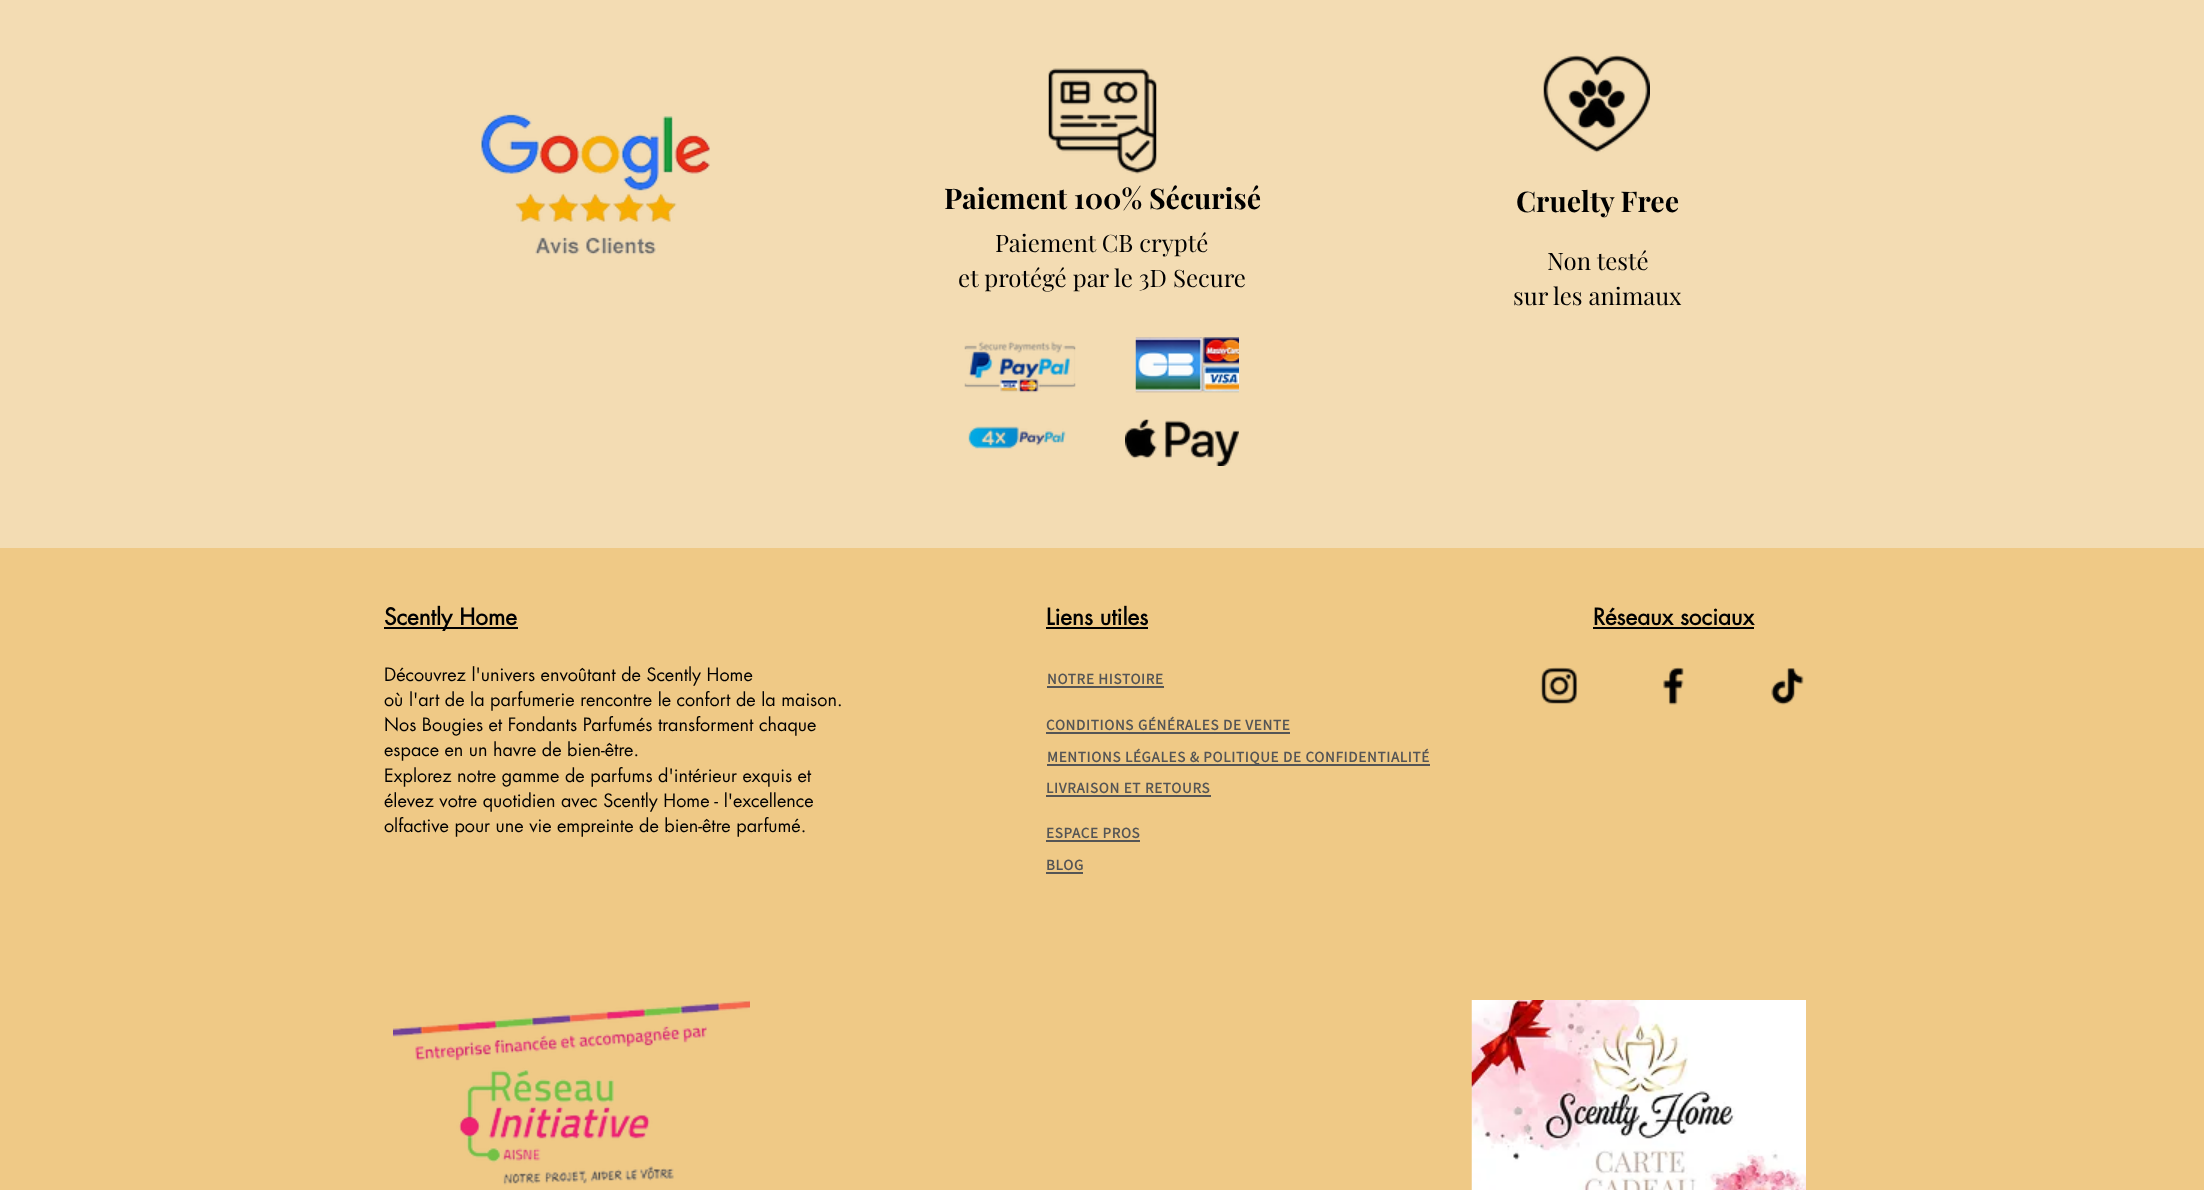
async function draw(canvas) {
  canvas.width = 2204;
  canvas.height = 1190;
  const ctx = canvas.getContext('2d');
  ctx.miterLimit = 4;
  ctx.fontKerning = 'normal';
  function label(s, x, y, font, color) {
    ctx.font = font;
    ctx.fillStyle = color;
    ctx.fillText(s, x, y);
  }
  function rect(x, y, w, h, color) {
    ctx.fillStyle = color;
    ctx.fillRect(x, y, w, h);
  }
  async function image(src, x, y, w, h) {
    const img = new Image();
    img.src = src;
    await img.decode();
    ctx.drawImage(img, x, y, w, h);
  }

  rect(0, 0, 2204, 1190, '#f3dcb3');
  await image('assets/img1.png', 480, 114, 230, 141);
  await image('assets/img2.png', 1048, 68, 109, 106);
  label('Paiement 100% Sécurisé', 944, 209, 'bold 28.5px Playfair Display', '#000');
  label('Paiement CB crypté', 995, 252, '24px Playfair Display', '#000');
  label('et protégé par le 3D Secure', 958, 287, '24px Playfair Display', '#000');
  await image('assets/img3.png', 1543, 55, 107, 98);
  label('Cruelty Free', 1516, 212, 'bold 28.5px Playfair Display', '#000');
  label('Non testé', 1547, 270, '24px Playfair Display', '#000');
  label('sur les animaux', 1513, 305, '24px Playfair Display', '#000');
  await image('assets/img4.png', 964, 341, 112, 52);
  await image('assets/img5.png', 1135, 337, 104, 56);
  await image('assets/img6.png', 968, 426, 98, 23);
  await image('assets/img7.png', 1125, 419, 114, 47);
  rect(0, 548, 2204, 642, '#efc986');
  rect(384, 627, 134, 2, '#000');
  label('Scently Home', 384, 625, 'bold 22.5px futura', '#000');
  label('Liens utiles', 1046, 625, 'bold 22.5px futura', '#000');
  rect(1046, 627, 102, 2, '#000');
  label('Réseaux sociaux', 1593, 625, 'bold 22.5px futura', '#000');
  rect(1593, 627, 161, 2, '#000');
  label('Découvrez l\'univers envoûtant de Scently Home', 384, 681, '18px futura', '#000');
  label('où l\'art de la parfumerie rencontre le confort de la maison.', 384, 706, '18px futura', '#000');
  label('Nos Bougies et Fondants Parfumés transforment chaque', 384, 731, '18px futura', '#000');
  label('espace en un havre de bien-être.', 384, 756, '18px futura', '#000');
  label('Explorez notre gamme de parfums d\'intérieur exquis et', 384, 782, '18px futura', '#000');
  label('élevez votre quotidien avec Scently Home - l\'excellence', 384, 807, '18px futura', '#000');
  label('olfactive pour une vie empreinte de bien-être parfumé.', 384, 832, '18px futura', '#000');
  ctx.letterSpacing = '0.75px';
  label('NOTRE HISTOIRE', 1047, 684, 'bold 15px Source Sans Pro', '#555');
  rect(1047, 686, 117, 2, '#555');
  await image('assets/img8.png', 1540, 667, 38, 37);
  await image('assets/img9.png', 1663, 667, 21, 38);
  await image('assets/img10.png', 1771, 668, 33, 37);
  label('CONDITIONS GÉNÉRALES DE VENTE', 1046, 730, 'bold 15px Source Sans Pro', '#555');
  rect(1046, 732, 244, 2, '#555');
  rect(1047, 764, 383, 2, '#555');
  label('MENTIONS LÉGALES & POLITIQUE DE CONFIDENTIALITÉ', 1047, 762, 'bold 15px Source Sans Pro', '#555');
  label('LIVRAISON ET RETOURS', 1046, 793, 'bold 15px Source Sans Pro', '#555');
  rect(1046, 795, 165, 2, '#555');
  label('ESPACE PROS', 1046, 838, 'bold 15px Source Sans Pro', '#555');
  rect(1046, 840, 94, 2, '#555');
  label('BLOG', 1046, 870, 'bold 15px Source Sans Pro', '#555');
  rect(1046, 872, 37, 2, '#555');
  await image('assets/img11.png', 393, 1000, 357, 185);
  await image('assets/img12.png', 1471, 1000, 335, 190);
}

draw(document.querySelector('canvas'));
